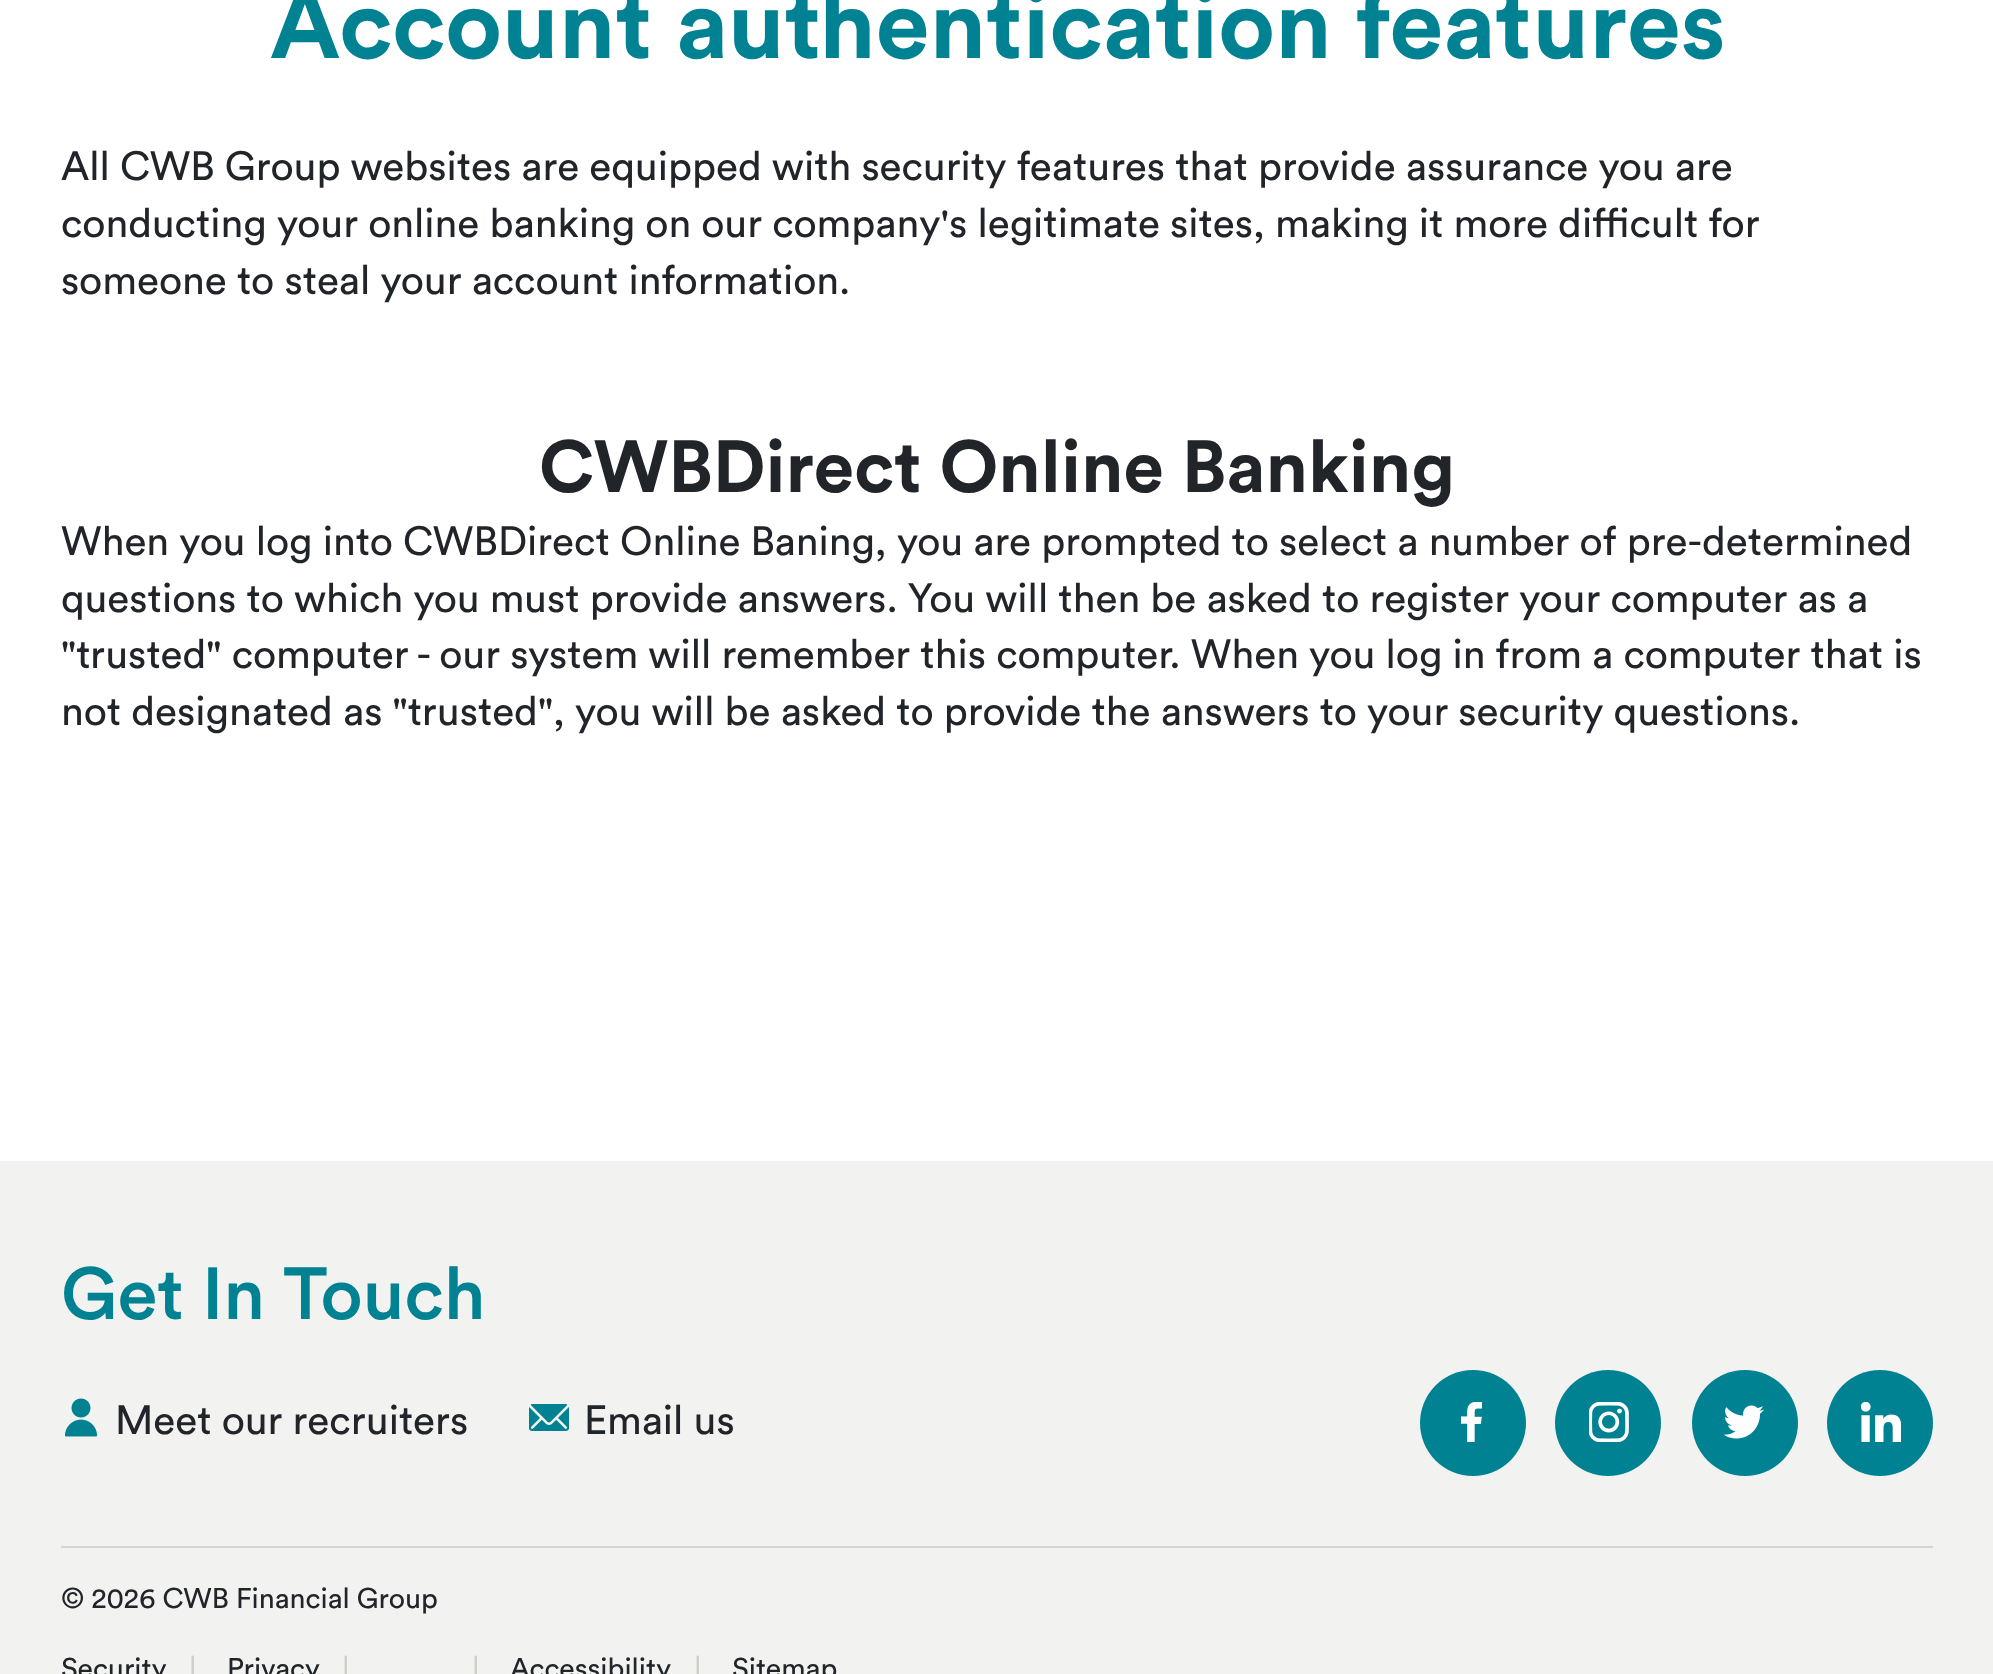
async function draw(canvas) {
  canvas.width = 1993;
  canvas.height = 1674;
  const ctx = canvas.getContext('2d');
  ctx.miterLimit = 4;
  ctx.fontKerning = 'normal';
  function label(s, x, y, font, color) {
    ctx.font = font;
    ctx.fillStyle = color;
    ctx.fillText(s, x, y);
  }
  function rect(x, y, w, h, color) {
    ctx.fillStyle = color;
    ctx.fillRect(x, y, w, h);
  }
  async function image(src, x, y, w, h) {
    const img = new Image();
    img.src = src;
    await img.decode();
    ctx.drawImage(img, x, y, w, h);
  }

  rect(0, 0, 1993, 1674, '#fff');
  label('Account authentication features', 270, 58, 'bold 97.25px Circular', '#008292');
  label('All CWB Group websites are equipped with security features that provide assurance you are', 61, 180, '40.5px Circular', '#212529');
  label('conducting your online banking on our company\'s legitimate sites, making it more difficult for', 61, 237, '40.5px Circular', '#212529');
  label('someone to steal your account information.', 61, 294, '40.5px Circular', '#212529');
  label('CWBDirect Online Banking', 539, 492, 'bold 72.9px Circular', '#212529');
  label('When you log into CWBDirect Online Baning, you are prompted to select a number of pre-determined', 61, 555, '40.5px Circular', '#212529');
  label('questions to which you must provide answers. You will then be asked to register your computer as a', 61, 612, '40.5px Circular', '#212529');
  label('"trusted" computer - our system will remember this computer. When you log in from a computer that is', 61, 668, '40.5px Circular', '#212529');
  label('not designated as "trusted", you will be asked to provide the answers to your security questions.', 61, 725, '40.5px Circular', '#212529');
  rect(0, 1161, 1993, 513, '#f2f3f1');
  label('Get In Touch', 61, 1319, '500 72.9px Circular', '#008292');
  await image('assets/img1.png', 65, 1398, 32, 39);
  label('Meet our recruiters', 115, 1434, '40.5px Circular', '#212529');
  await image('assets/img2.png', 529, 1404, 40, 27);
  label('Email us', 584, 1434, '40.5px Circular', '#212529');
  ctx.fillStyle = '#008292';
  ctx.beginPath();
  ctx.arc(1473, 1423, 53, 0, 2 * Math.PI);
  ctx.fill();
  await image('assets/img3.png', 1461, 1402, 21, 40);
  ctx.beginPath();
  ctx.arc(1608, 1423, 53, 0, 2 * Math.PI);
  ctx.fill();
  await image('assets/img4.png', 1589, 1402, 40, 40);
  ctx.beginPath();
  ctx.arc(1745, 1423, 53, 0, 2 * Math.PI);
  ctx.fill();
  await image('assets/img5.png', 1724, 1405, 40, 34);
  ctx.beginPath();
  ctx.arc(1880, 1423, 53, 0, 2 * Math.PI);
  ctx.fill();
  await image('assets/img6.png', 1861, 1402, 40, 40);
  rect(61, 1546, 1872, 2, '#d4d5cf');
  label('© 2026 CWB Financial Group', 61, 1608, '28.4px Circular', '#212529');
  label('Security', 61, 1678, '28.4px Circular', '#212529');
  label('|', 189, 1678, '28.4px Circular', '#ccd0c8');
  label('Privacy', 227, 1678, '28.4px Circular', '#212529');
  label('|', 342, 1678, '28.4px Circular', '#ccd0c8');
  label('|', 472, 1678, '28.4px Circular', '#ccd0c8');
  label('Accessibility', 510, 1678, '28.4px Circular', '#212529');
  label('|', 694, 1678, '28.4px Circular', '#ccd0c8');
  label('Sitemap', 732, 1678, '28.4px Circular', '#212529');
}

draw(document.querySelector('canvas'));
